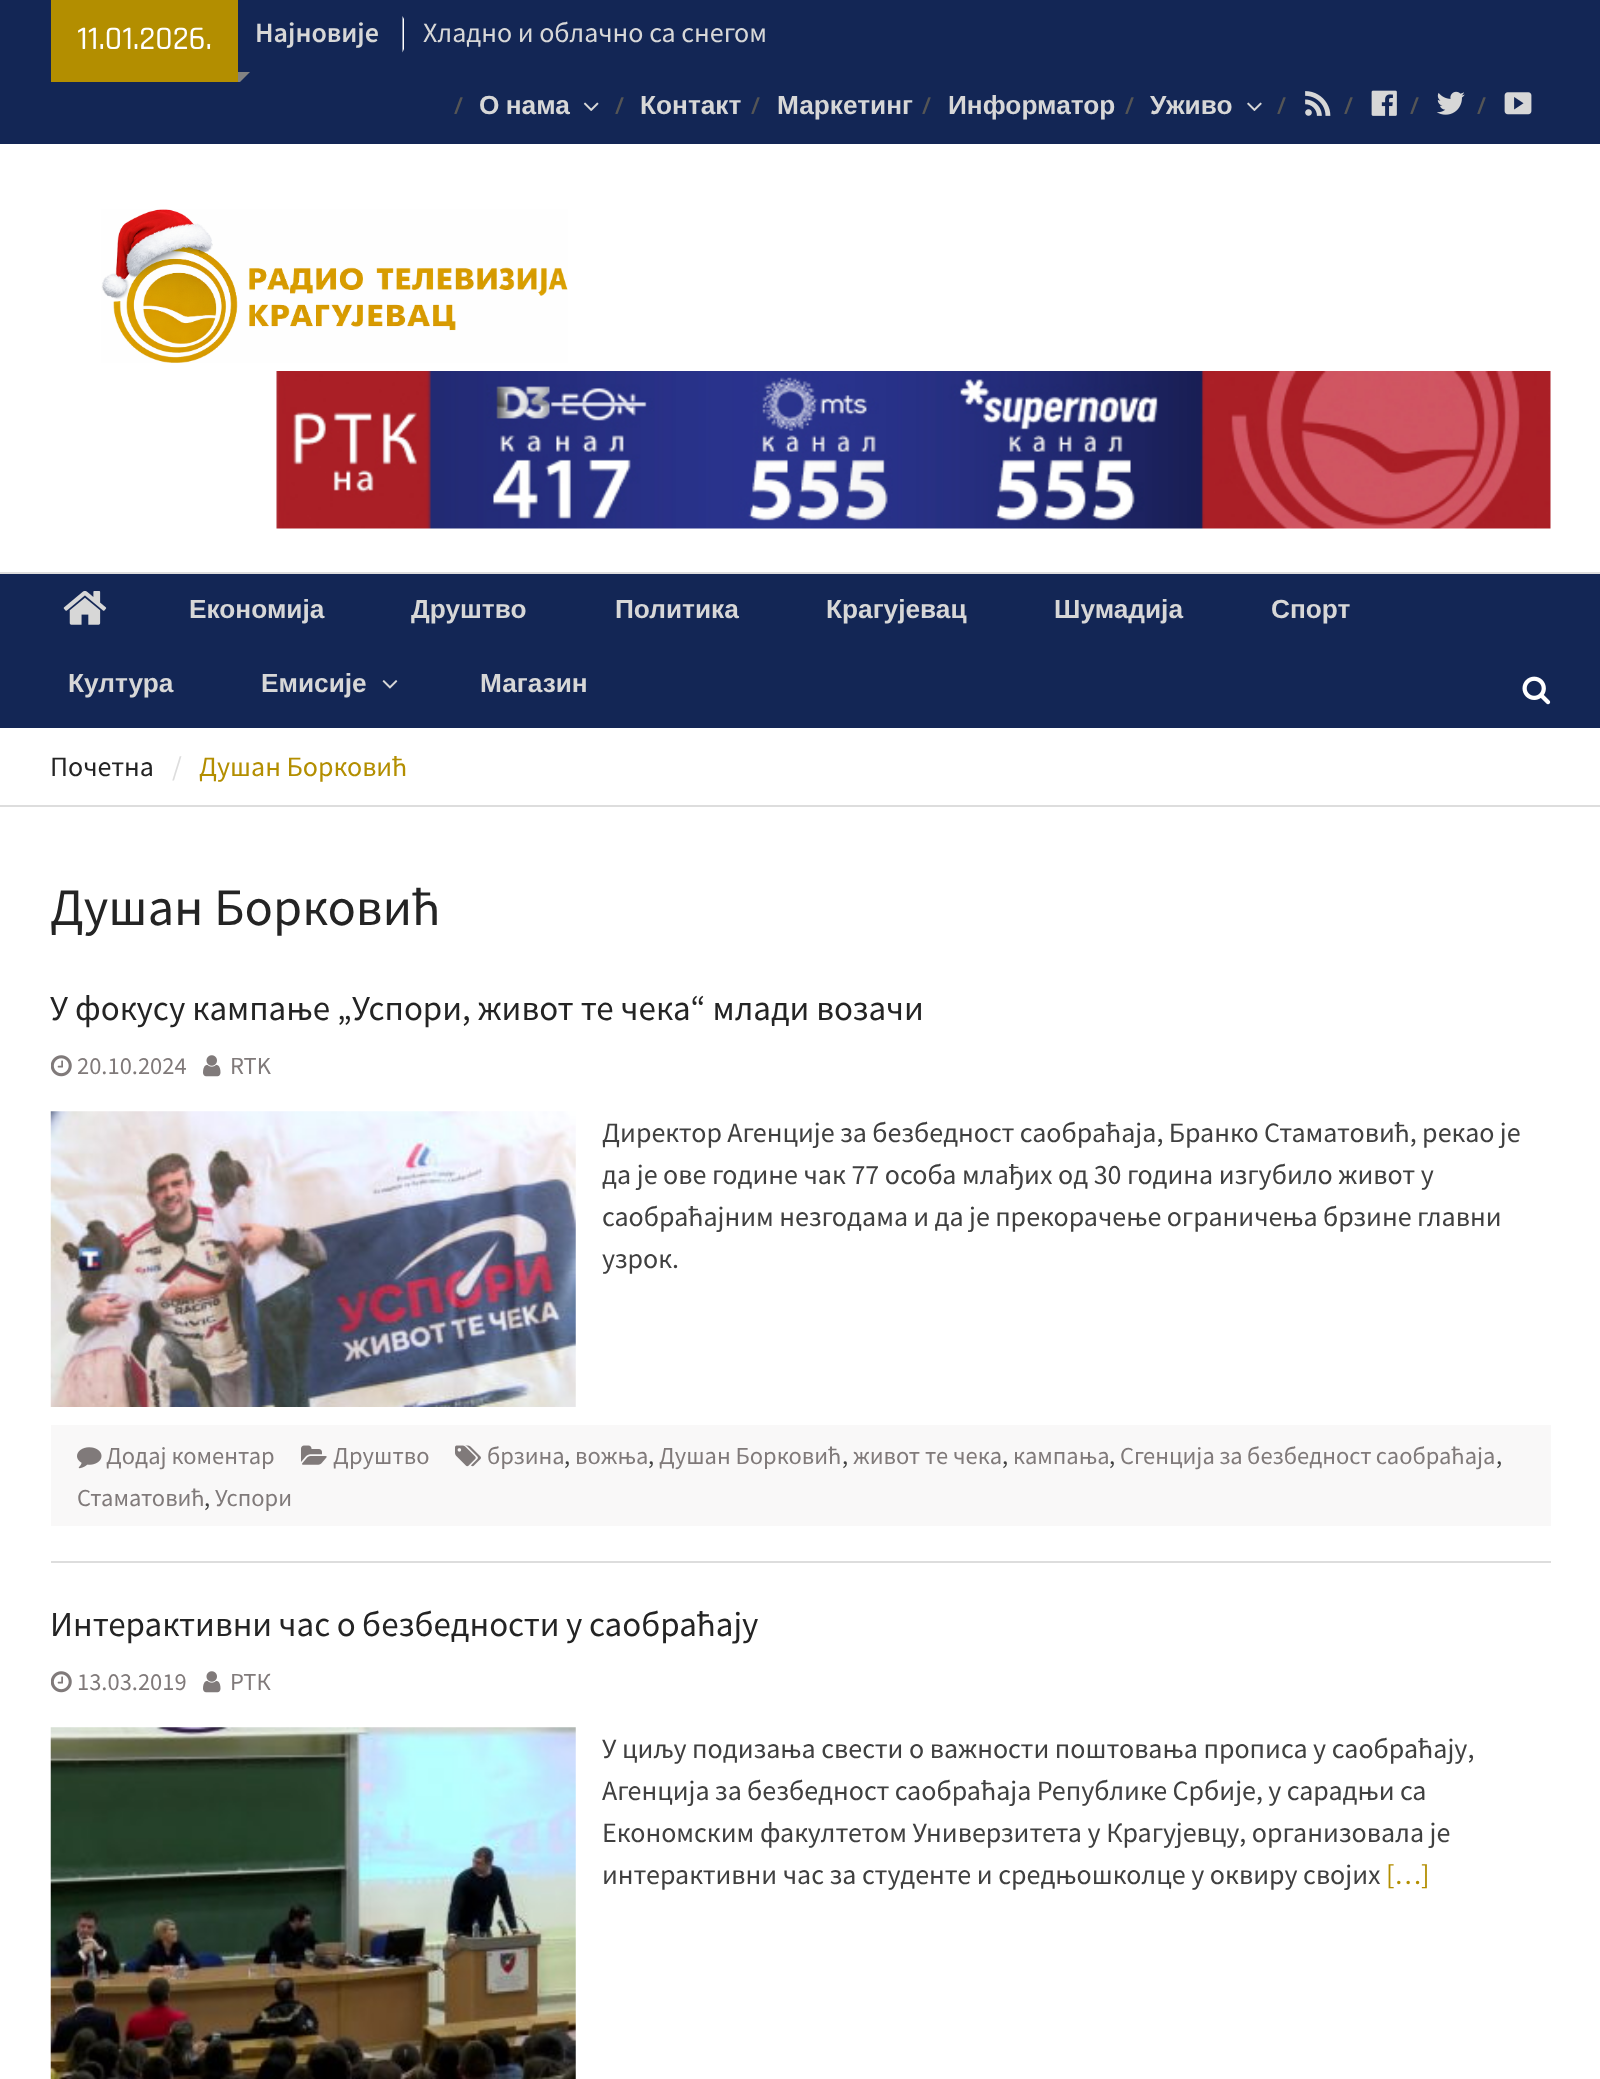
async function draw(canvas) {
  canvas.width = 1600;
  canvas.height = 2079;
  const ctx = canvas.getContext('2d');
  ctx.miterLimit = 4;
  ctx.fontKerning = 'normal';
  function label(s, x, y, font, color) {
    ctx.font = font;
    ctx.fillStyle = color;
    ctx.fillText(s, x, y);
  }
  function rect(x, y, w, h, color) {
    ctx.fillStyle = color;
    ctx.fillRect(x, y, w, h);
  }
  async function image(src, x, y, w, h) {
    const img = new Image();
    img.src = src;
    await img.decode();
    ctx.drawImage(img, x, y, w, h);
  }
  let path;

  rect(0, 0, 1600, 2079, '#fff');
  rect(0, 0, 1600, 144, '#132655');
  rect(51, 0, 187, 82, '#b38e00');
  label('11.01.2026.', 77, 49, '500 33.25px Rajdhani', '#fff');
  ctx.fillStyle = '#838383';
  path = new Path2D('M238 72H250L240 82H238Z');
  ctx.fill(path);
  label('Најновије', 255, 42, '600 28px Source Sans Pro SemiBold', '#d7d7d7');
  ctx.fillStyle = '#fff';
  path = new Path2D('M402.5 52.5V16L404 19V49Z');
  ctx.fill(path);
  label('Хладно и облачно са снегом', 423, 42, '28px Source Sans Pro', '#d7d7d7');
  label('/', 453, 114, '600 26.25px Rajdhani', '#555');
  ctx.wordSpacing = '-1px';
  label('О нама', 479, 114, 'bold 26.25px Liberation Sans', '#d7d7d7');
  await image('assets/img1.png', 583, 102, 16, 9);
  ctx.wordSpacing = '0px';
  label('/', 614, 114, '600 26.25px Rajdhani', '#555');
  label('Контакт', 640, 114, 'bold 26.25px Liberation Sans', '#d7d7d7');
  label('/', 750, 114, '600 26.25px Rajdhani', '#555');
  label('Маркетинг', 777, 114, 'bold 26.25px Liberation Sans', '#d7d7d7');
  label('/', 921, 114, '600 26.25px Rajdhani', '#555');
  label('Информатор', 948, 114, 'bold 26.25px Liberation Sans', '#d7d7d7');
  label('/', 1124, 114, '600 26.25px Rajdhani', '#555');
  label('Уживо', 1150, 114, 'bold 26.25px Liberation Sans', '#d7d7d7');
  await image('assets/img2.png', 1247, 102, 15, 9);
  label('/', 1276, 114, '600 26.25px Rajdhani', '#555');
  await image('assets/img3.png', 1305, 91, 26, 25);
  label('/', 1343, 114, '600 26.25px Rajdhani', '#555');
  await image('assets/img4.png', 1371, 90, 26, 26);
  label('/', 1409, 114, '600 26.25px Rajdhani', '#555');
  await image('assets/img5.png', 1436, 91, 29, 24);
  label('/', 1476, 114, '600 26.25px Rajdhani', '#555');
  await image('assets/img6.png', 1504, 92, 28, 23);
  rect(0, 572, 1600, 2, '#ddd');
  await image('assets/img7.png', 101, 209, 467, 154);
  await image('assets/img8.png', 276, 371, 1275, 158);
  rect(0, 574, 1600, 154, '#132655');
  await image('assets/img9.png', 63, 590, 44, 35);
  label('Економија', 189, 618, 'bold 26.25px Liberation Sans', '#d7d7d7');
  label('Друштво', 411, 618, 'bold 26.25px Liberation Sans', '#d7d7d7');
  label('Политика', 615, 618, 'bold 26.25px Liberation Sans', '#d7d7d7');
  label('Крагујевац', 826, 618, 'bold 26.25px Liberation Sans', '#d7d7d7');
  label('Шумадија', 1054, 618, 'bold 26.25px Liberation Sans', '#d7d7d7');
  label('Спорт', 1271, 618, 'bold 26.25px Liberation Sans', '#d7d7d7');
  label('Култура', 68, 692, 'bold 26.25px Liberation Sans', '#d7d7d7');
  label('Емисије', 261, 692, 'bold 26.25px Liberation Sans', '#d7d7d7');
  await image('assets/img10.png', 382, 680, 16, 9);
  label('Магазин', 480, 692, 'bold 26.25px Liberation Sans', '#d7d7d7');
  await image('assets/img11.png', 1522, 676, 29, 29);
  rect(0, 805, 1600, 2, '#ddd');
  label('Почетна', 50, 776, '28px Source Sans Pro', '#242424');
  label('/', 172, 776, '28px Source Sans Pro', '#ddd');
  label('Душан Борковић', 199, 776, '28px Source Sans Pro', '#b38e00');
  label('Душан Борковић', 50, 925, '52.5px Source Sans Pro', '#242424');
  rect(51, 1561, 1500, 2, '#ddd');
  label('У фокусу кампање „Успори, живот те чека“ млади возачи', 50, 1020, '35px Source Sans Pro', '#242424');
  await image('assets/img12.png', 51, 1055, 21, 22);
  label('20.10.2024', 77, 1074, '24.5px Source Sans Pro', '#807a7a');
  await image('assets/img13.png', 203, 1055, 18, 22);
  label('RTK', 230, 1074, '24.5px Source Sans Pro', '#807a7a');
  await image('assets/img14.png', 50, 1111, 526, 296);
  ctx.wordSpacing = '-0.25px';
  label('Директор Агенције за безбедност саобраћаја, Бранко Стаматовић, рекао је', 602, 1142, '28px Source Sans Pro', '#404040');
  ctx.wordSpacing = '0px';
  label('да је ове године чак 77 особа млађих од 30 година изгубило живот у', 602, 1184, '28px Source Sans Pro', '#404040');
  ctx.wordSpacing = '-0.25px';
  label('саобраћајним незгодама и да је прекорачење ограничења брзине главни', 602, 1226, '28px Source Sans Pro', '#404040');
  ctx.wordSpacing = '0px';
  label('узрок.', 602, 1268, '28px Source Sans Pro', '#404040');
  rect(51, 1425, 1500, 101, '#f9f8f8');
  await image('assets/img15.png', 455, 1445, 26, 22);
  label('брзина', 487, 1464, '24.5px Source Sans Pro', '#807a7a');
  label(',', 564, 1464, '24.5px Source Sans Pro', '#404040');
  label('вожња', 575, 1464, '24.5px Source Sans Pro', '#807a7a');
  label(',', 648, 1464, '24.5px Source Sans Pro', '#404040');
  label('Душан Борковић', 659, 1464, '24.5px Source Sans Pro', '#807a7a');
  label(',', 842, 1464, '24.5px Source Sans Pro', '#404040');
  label('живот те чека', 853, 1464, '24.5px Source Sans Pro', '#807a7a');
  label(',', 1002, 1464, '24.5px Source Sans Pro', '#404040');
  label('кампања', 1013, 1464, '24.5px Source Sans Pro', '#807a7a');
  label(',', 1109, 1464, '24.5px Source Sans Pro', '#404040');
  ctx.wordSpacing = '-0.5px';
  label('Сгенција за безбедност саобраћаја', 1120, 1464, '24.5px Source Sans Pro', '#807a7a');
  ctx.wordSpacing = '0px';
  label(',', 1496, 1464, '24.5px Source Sans Pro', '#404040');
  label('Стаматовић', 77, 1506, '24.5px Source Sans Pro', '#807a7a');
  label(',', 204, 1506, '24.5px Source Sans Pro', '#404040');
  label('Успори', 215, 1506, '24.5px Source Sans Pro', '#807a7a');
  await image('assets/img16.png', 77, 1447, 25, 22);
  label('Додај коментар', 106, 1464, '24.5px Source Sans Pro', '#807a7a');
  await image('assets/img17.png', 301, 1445, 26, 20);
  label('Друштво', 333, 1464, '24.5px Source Sans Pro', '#807a7a');
  ctx.wordSpacing = '-0.5px';
  label('Интерактивни час о безбедности у саобраћају', 50, 1636, '35px Source Sans Pro', '#242424');
  await image('assets/img12.png', 51, 1671, 21, 22);
  ctx.wordSpacing = '0px';
  label('13.03.2019', 77, 1690, '24.5px Source Sans Pro', '#807a7a');
  await image('assets/img13.png', 203, 1671, 18, 22);
  label('РТК', 230, 1690, '24.5px Source Sans Pro', '#807a7a');
  await image('assets/img18.png', 50, 1727, 526, 352);
  label('У циљу подизања свести о важности поштовања прописа у саобраћају,', 602, 1758, '28px Source Sans Pro', '#404040');
  ctx.wordSpacing = '-0.25px';
  label('Агенција за безбедност саобраћаја Републике Србије, у сарадњи са', 602, 1800, '28px Source Sans Pro', '#404040');
  ctx.wordSpacing = '0px';
  label('Економским факултетом Универзитета у Крагујевцу, организовала је', 602, 1842, '28px Source Sans Pro', '#404040');
  label('интерактивни час за студенте и средњошколце у оквиру својих', 602, 1884, '28px Source Sans Pro', '#404040');
  label('[…]', 1386, 1884, '28px Source Sans Pro', '#b38e00');
}

draw(document.querySelector('canvas'));
